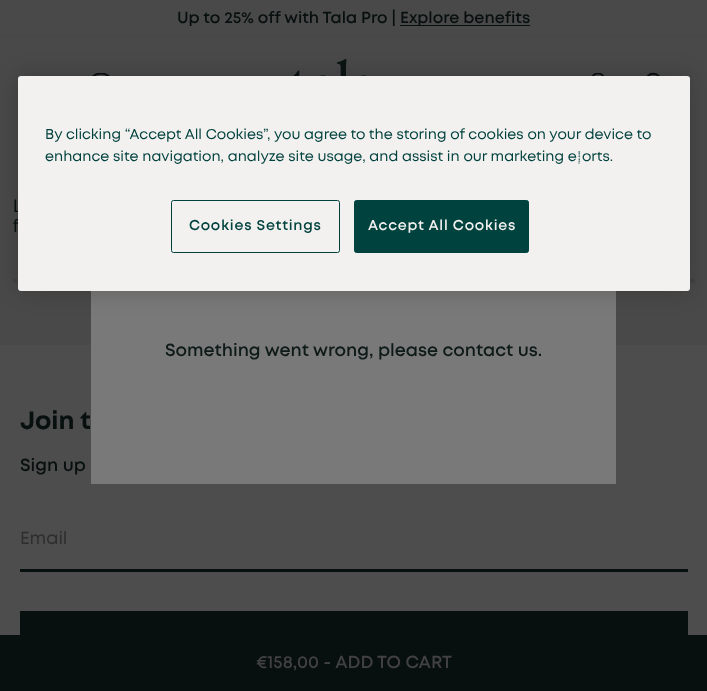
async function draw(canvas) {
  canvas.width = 707;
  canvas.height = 691;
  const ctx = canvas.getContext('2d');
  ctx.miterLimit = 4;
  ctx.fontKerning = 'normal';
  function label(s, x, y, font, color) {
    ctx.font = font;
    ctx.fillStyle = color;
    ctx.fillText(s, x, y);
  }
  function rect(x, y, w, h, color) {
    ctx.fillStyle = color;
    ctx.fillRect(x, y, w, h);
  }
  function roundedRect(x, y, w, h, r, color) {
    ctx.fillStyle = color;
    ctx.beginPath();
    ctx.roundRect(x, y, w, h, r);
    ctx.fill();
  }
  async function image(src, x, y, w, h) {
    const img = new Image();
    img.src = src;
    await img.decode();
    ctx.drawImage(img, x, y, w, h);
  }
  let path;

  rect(0, 0, 707, 691, '#494949');
  rect(0, 36, 707, 1, '#464646');
  label('Up to 25% off with Tala Pro |', 177, 23, '600 16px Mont', '#08100f');
  rect(400, 25, 130, 1, '#08100f');
  label('Explore benefits', 400, 23, '600 16px Mont', '#08100f');
  await image('assets/img1.png', 293, 59, 74, 17);
  ctx.save();
  ctx.beginPath();
  ctx.rect(88, 73, 30, 30);
  ctx.clip();
  ctx.beginPath();
  ctx.arc(101, 86, 12.5, 0, 2 * Math.PI);
  ctx.strokeStyle = '#08100f';
  ctx.lineWidth = 1.9;
  ctx.stroke();
  ctx.restore();
  ctx.save();
  ctx.beginPath();
  ctx.rect(584, 73, 30, 30);
  ctx.clip();
  ctx.beginPath();
  ctx.arc(598, 80.5, 7, 0, 2 * Math.PI);
  ctx.strokeStyle = '#08100f';
  ctx.lineWidth = 1.7;
  ctx.stroke();
  ctx.restore();
  path = new Path2D('M661 82C661 71 645.5 71 645.5 82');
  ctx.strokeStyle = '#08100f';
  ctx.lineWidth = 1.8;
  ctx.stroke(path);
  rect(13, 279, 682, 4, '#434343');
  rect(0, 345, 707, 290, '#4d4d4d');
  rect(91, 291, 525, 193, '#7a7979');
  ctx.fillStyle = '#00000033';
  ctx.filter = 'blur(11px)';
  ctx.beginPath();
  ctx.roundRect(18, 76, 672, 215, 3);
  ctx.fill();
  ctx.filter = 'none';
  label('L', 13, 212, '18px Liberation Sans', '#08100f');
  roundedRect(18, 76, 672, 215, 3, '#f3f0f0');
  label('By clicking “Accept All Cookies”, you agree to the storing of cookies on your device to', 45, 139, '14.25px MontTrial', '#00423d');
  label('enhance site navigation, analyze site usage, and assist in our marketing efforts.', 45, 161, '14.25px MontTrial', '#00423d');
  ctx.beginPath();
  ctx.roundRect(171.5, 200.5, 168, 52, 2);
  ctx.strokeStyle = '#00423d';
  ctx.lineWidth = 1;
  ctx.stroke();
  ctx.letterSpacing = '0.75px';
  label('Cookies Settings', 189, 230, '600 14.25px Mont', '#00423d');
  ctx.beginPath();
  ctx.roundRect(354.5, 200.5, 174, 52, 2);
  ctx.fill();
  ctx.stroke();
  label('Accept All Cookies', 368, 230, '600 14.25px Mont', '#f3f0f0');
  ctx.letterSpacing = '0px';
  label('f', 13, 232, '18px Liberation Sans', '#08100f');
  rect(0, 635, 707, 56, '#08100f');
  label('€158,00 - ADD TO CART', 256, 668, '600 17.5px Mont', '#414141');
  label('Something went wrong, please contact us.', 165, 356, '600 17.5px Mont', '#0d1a18');
  label('Join t', 20, 429, 'bold 25px Mont', '#08100f');
  label('Sign up', 20, 471, '600 17.5px Mont', '#08100f');
  rect(20, 569, 668, 3, '#08100f');
  label('Email', 20, 544, '17.5px MontTrial', '#2d2d2d');
  rect(20, 611, 668, 24, '#08100f');
}

draw(document.querySelector('canvas'));
